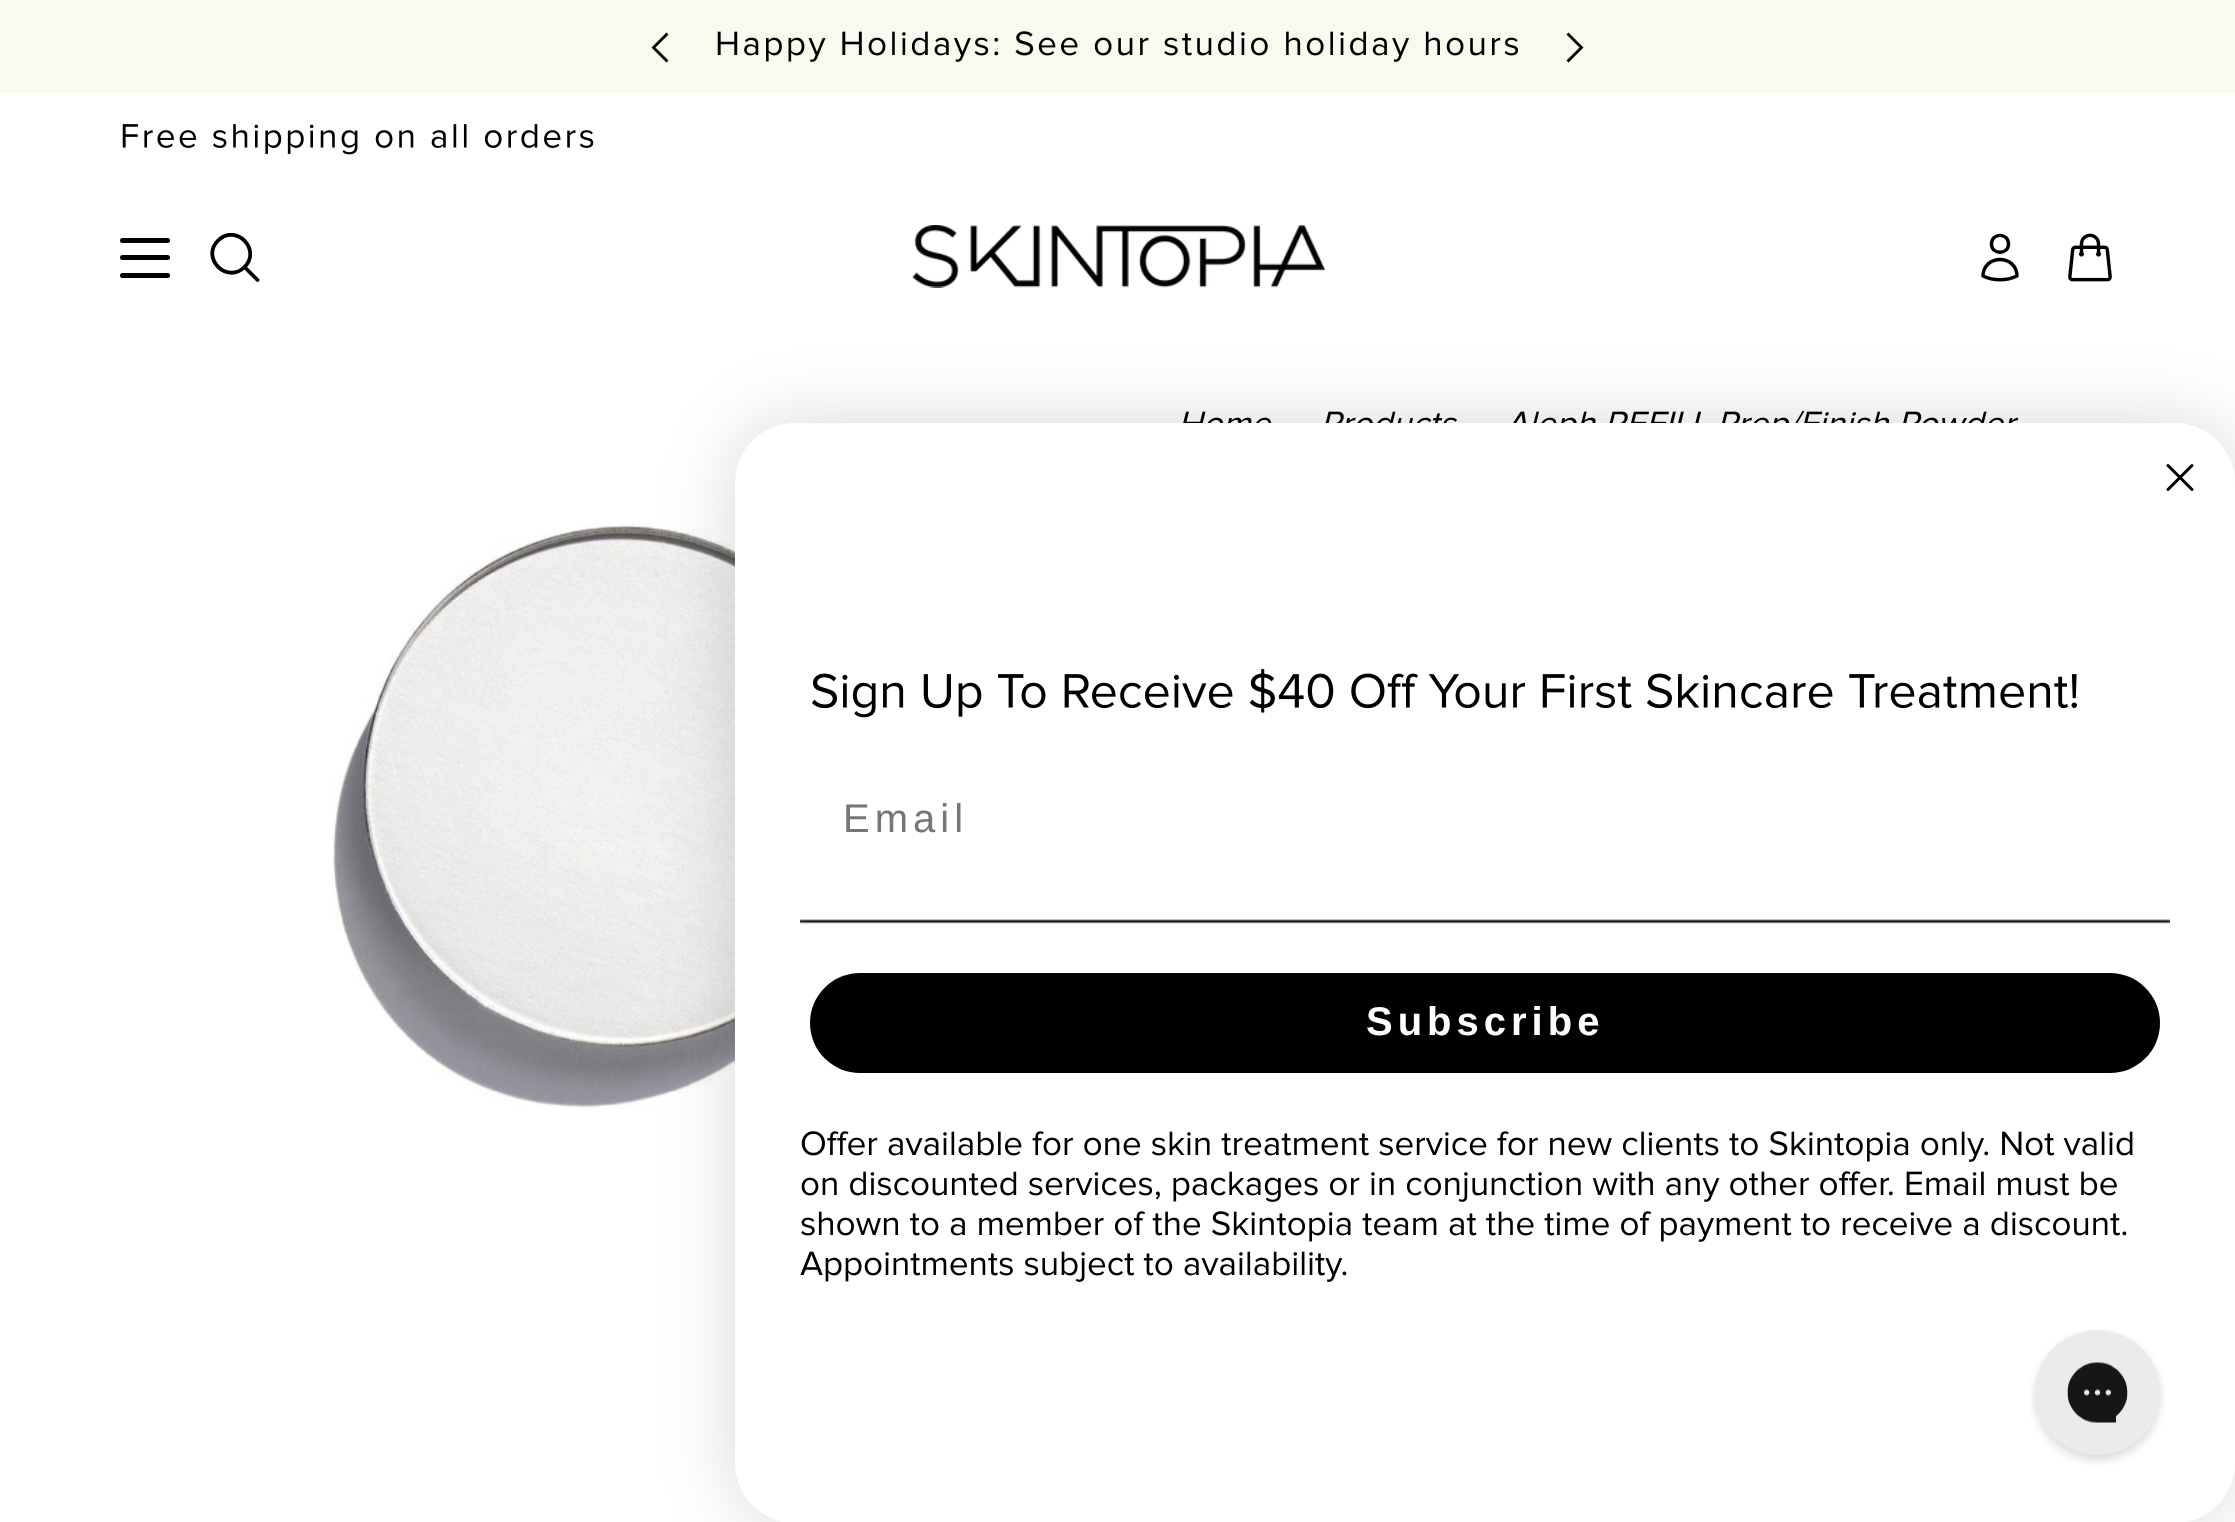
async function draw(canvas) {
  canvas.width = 2235;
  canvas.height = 1522;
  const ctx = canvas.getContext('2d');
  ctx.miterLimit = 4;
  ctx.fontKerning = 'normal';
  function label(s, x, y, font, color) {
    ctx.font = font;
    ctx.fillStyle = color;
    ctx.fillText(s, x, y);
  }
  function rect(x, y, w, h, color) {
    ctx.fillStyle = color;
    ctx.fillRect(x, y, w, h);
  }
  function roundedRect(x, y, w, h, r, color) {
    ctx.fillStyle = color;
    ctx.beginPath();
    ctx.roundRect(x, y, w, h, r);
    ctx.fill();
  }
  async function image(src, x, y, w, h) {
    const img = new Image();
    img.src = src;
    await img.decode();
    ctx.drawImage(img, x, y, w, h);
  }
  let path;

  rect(0, 0, 2235, 1522, '#fff');
  rect(0, 0, 2235, 93, '#f7faef');
  ctx.fillStyle = '#000';
  path = new Path2D('M655.5 47.5L668.5 60.5L666.5 62.5L651.5 47.5L666.5 32.5L668.5 34.5Z');
  ctx.fill(path);
  await image('assets/img1.png', 717, 31, 801, 31);
  path = new Path2D('M1579.5 47.5L1566.5 34.5L1568.5 32.5L1583.5 47.5L1568.5 62.5L1566.5 60.5Z');
  ctx.fill(path);
  await image('assets/img2.png', 122, 124, 472, 31);
  roundedRect(120, 238, 50, 5, 2.5, '#000');
  roundedRect(120, 255, 50, 5, 2.5, '#000');
  roundedRect(120, 273, 50, 5, 2.5, '#000');
  ctx.save();
  ctx.beginPath();
  ctx.rect(210, 233, 50, 50);
  ctx.clip();
  path = new Path2D('M257.5 280L244.5 267M244.5 267C262 249.5 235.5 223 218 240.5C200.5 258 227 284.5 244.5 267Z');
  ctx.strokeStyle = '#000';
  ctx.lineWidth = 3.8;
  ctx.lineCap = 'round';
  ctx.lineJoin = 'round';
  ctx.stroke(path);
  ctx.restore();
  await image('assets/img3.png', 912, 225, 413, 63);
  path = new Path2D('M2008.5 244C2008.5 255 1991.5 255 1991.5 244C1991.5 232.5 2008.5 232.5 2008.5 244ZM1983 276C1983.5 254 2016.5 254 2017 276C2006.5 281 1993.5 281 1983 276Z');
  ctx.strokeStyle = '#000';
  ctx.lineWidth = 3.4;
  ctx.lineCap = 'round';
  ctx.lineJoin = 'round';
  ctx.stroke(path);
  await image('assets/img4.png', 2068, 233, 44, 49);
  await image('assets/img5.png', 1183, 411, 89, 12);
  await image('assets/img6.png', 1325, 411, 132, 12);
  await image('assets/img7.png', 1513, 410, 506, 13);
  await image('assets/img8.png', 333, 520, 402, 590);
  ctx.fillStyle = '#00000026';
  ctx.filter = 'blur(37.5px)';
  ctx.beginPath();
  ctx.roundRect(735, 423, 1500, 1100, 60);
  ctx.fill();
  ctx.filter = 'none';
  roundedRect(735, 423, 1500, 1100, 60, '#fff');
  path = new Path2D('M2168 465.5L2192 489.5M2168 489.5L2192 465.5Z');
  ctx.lineWidth = 3;
  ctx.stroke(path);
  await image('assets/img9.png', 812, 669, 820, 49);
  await image('assets/img10.png', 1647, 673, 430, 36);
  ctx.letterSpacing = '5px';
  label('Email', 843, 832, '40px Liberation Sans', '#767676');
  await image('assets/img11.png', 800, 919, 1370, 5);
  roundedRect(810, 973, 1350, 100, 50, '#000');
  label('Subscribe', 1366, 1035, 'bold 40px Liberation Sans', '#fff');
  await image('assets/img12.png', 801, 1131, 1332, 31);
  await image('assets/img13.png', 801, 1171, 1316, 31);
  await image('assets/img14.png', 801, 1211, 1326, 31);
  await image('assets/img15.png', 800, 1251, 547, 31);
  await image('assets/img16.png', 2030, 1329, 135, 136);
}

draw(document.querySelector('canvas'));
